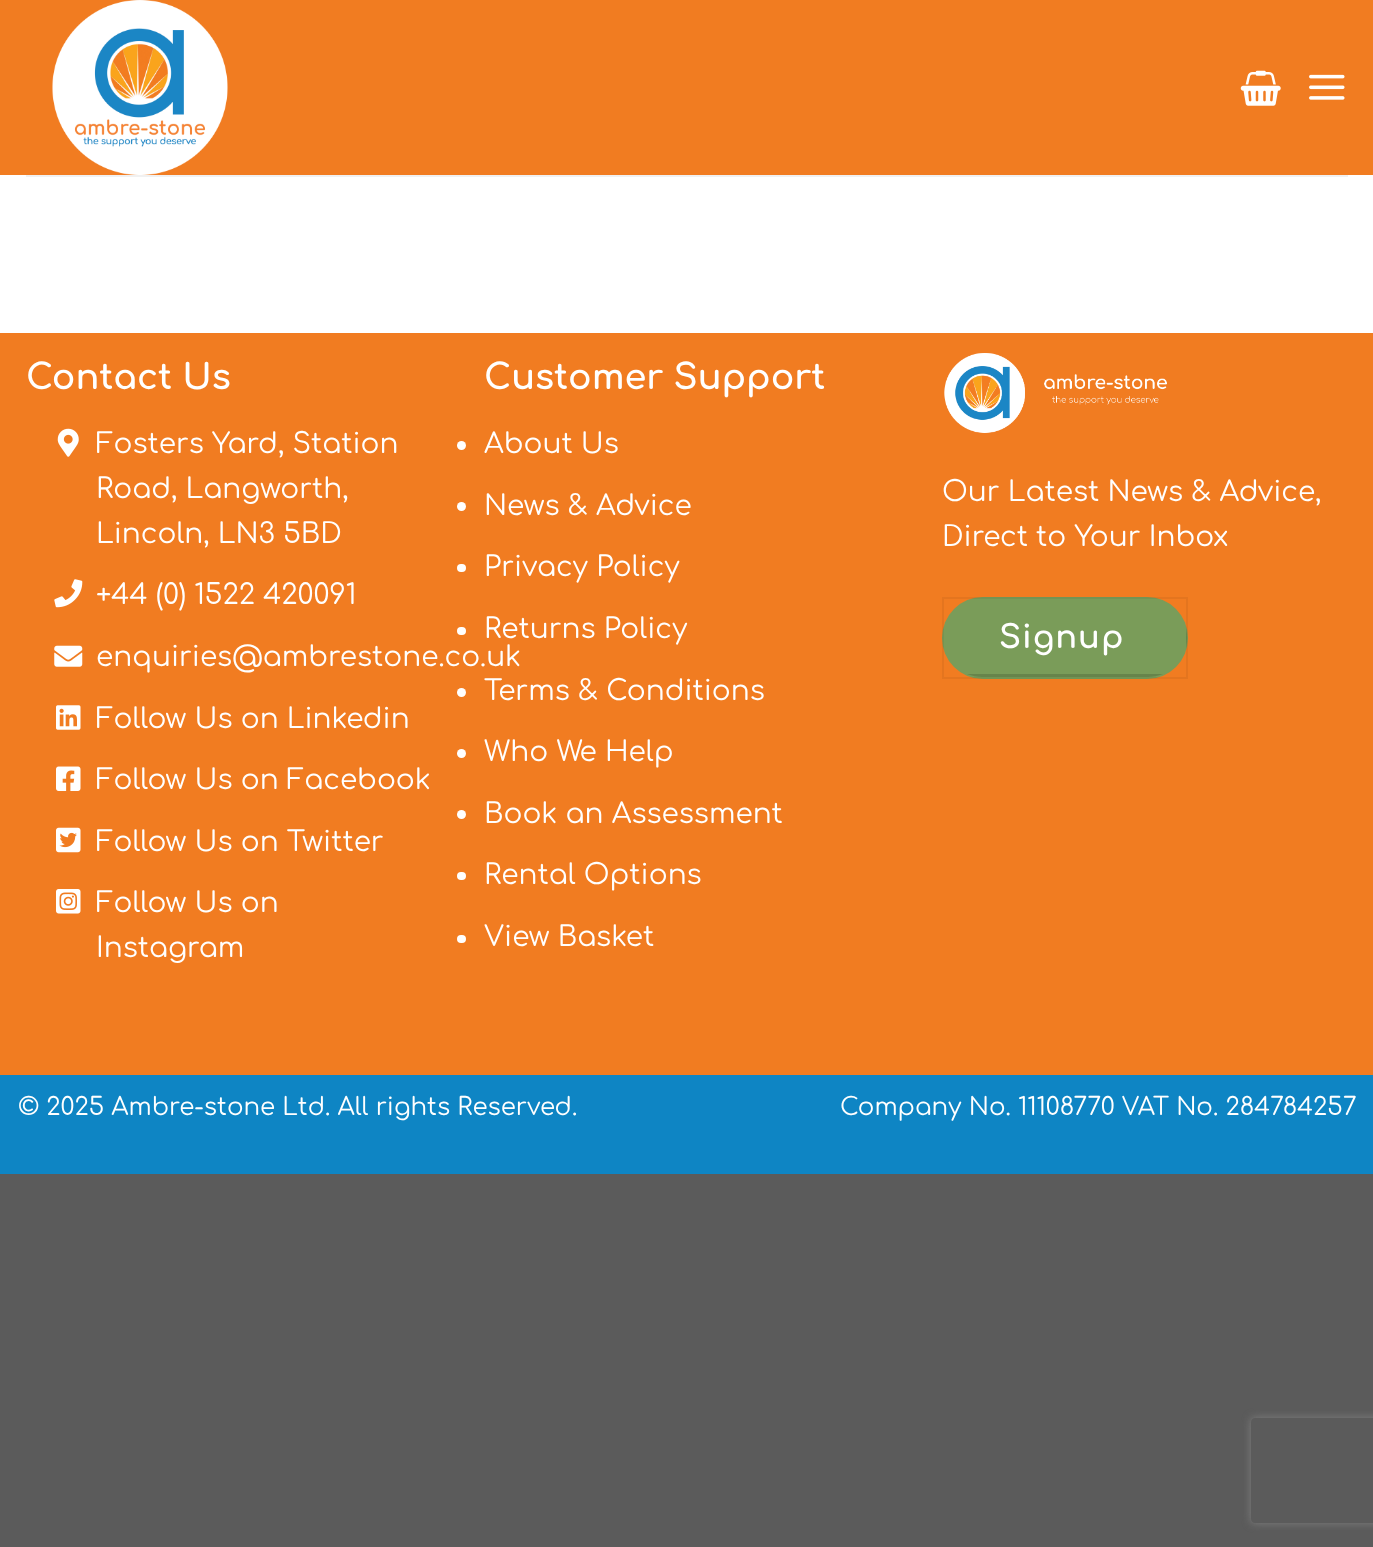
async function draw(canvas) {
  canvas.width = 1373;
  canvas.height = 1547;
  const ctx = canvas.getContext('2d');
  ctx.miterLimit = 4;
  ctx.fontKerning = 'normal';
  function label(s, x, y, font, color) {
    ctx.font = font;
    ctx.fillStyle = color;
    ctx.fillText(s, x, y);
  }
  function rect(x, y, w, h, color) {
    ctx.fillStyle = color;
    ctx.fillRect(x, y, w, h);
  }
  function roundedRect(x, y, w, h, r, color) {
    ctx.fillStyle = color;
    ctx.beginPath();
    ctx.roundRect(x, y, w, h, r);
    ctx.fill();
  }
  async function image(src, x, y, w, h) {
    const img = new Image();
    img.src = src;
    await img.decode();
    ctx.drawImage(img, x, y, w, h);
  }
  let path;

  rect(0, 0, 1373, 1547, '#5b5b5b');
  rect(0, 175, 1373, 158, '#fff');
  rect(0, 0, 1373, 175, '#f17c21');
  await image('assets/img1.png', 52, 0, 176, 175);
  await image('assets/img2.png', 1240, 70, 41, 36);
  await image('assets/img3.png', 1309, 74, 36, 26);
  rect(26, 175, 1322, 2, '#f1f1f1');
  rect(0, 333, 1373, 742, '#f17c21');
  label('Contact Us', 26, 389, 'bold 35px Comfortaa', '#fff');
  await image('assets/img4.png', 57, 428, 22, 29);
  label('Fosters Yard, Station', 96, 453, '28px Comfortaa', '#fff');
  label('Road, Langworth,', 96, 498, '28px Comfortaa', '#fff');
  label('Lincoln, LN3 5BD', 96, 543, '28px Comfortaa', '#fff');
  await image('assets/img5.png', 54, 579, 29, 29);
  label('+44 (0) 1522 420091', 96, 604, '28px Comfortaa', '#fff');
  await image('assets/img6.png', 54, 645, 29, 22);
  label('enquiries@ambrestone.co.uk', 96, 666, '28px Comfortaa', '#fff');
  await image('assets/img7.png', 56, 705, 25, 25);
  label('Follow Us on Linkedin', 96, 728, '28px Comfortaa', '#fff');
  await image('assets/img8.png', 56, 766, 25, 25);
  label('Follow Us on Facebook', 96, 789, '28px Comfortaa', '#fff');
  await image('assets/img9.png', 56, 827, 25, 26);
  label('Follow Us on Twitter', 96, 851, '28px Comfortaa', '#fff');
  await image('assets/img10.png', 56, 889, 25, 25);
  label('Follow Us on', 96, 912, '28px Comfortaa', '#fff');
  label('Instagram', 96, 957, '28px Comfortaa', '#fff');
  label('Customer Support', 484, 389, 'bold 35px Comfortaa', '#fff');
  ctx.beginPath();
  ctx.arc(461.5, 445.5, 4.5, 0, 2 * Math.PI);
  ctx.fill();
  label('About Us', 484, 453, '28px Comfortaa', '#fff');
  ctx.beginPath();
  ctx.arc(461.5, 506.5, 4.5, 0, 2 * Math.PI);
  ctx.fill();
  label('News & Advice', 484, 515, '28px Comfortaa', '#fff');
  roundedRect(457, 564, 9, 8, 4, '#fff');
  label('Privacy Policy', 484, 576, '28px Comfortaa', '#fff');
  roundedRect(457, 627, 9, 8, 4, '#fff');
  label('Returns Policy', 484, 638, '28px Comfortaa', '#fff');
  ctx.beginPath();
  ctx.arc(461.5, 692.5, 4.5, 0, 2 * Math.PI);
  ctx.fill();
  label('Terms & Conditions', 484, 700, '28px Comfortaa', '#fff');
  ctx.beginPath();
  ctx.arc(461.5, 753.5, 4.5, 0, 2 * Math.PI);
  ctx.fill();
  label('Who We Help', 484, 761, '28px Comfortaa', '#fff');
  ctx.beginPath();
  ctx.arc(461.5, 814.5, 4.5, 0, 2 * Math.PI);
  ctx.fill();
  label('Book an Assessment', 484, 823, '28px Comfortaa', '#fff');
  roundedRect(457, 872, 9, 8, 4, '#fff');
  label('Rental Options', 484, 884, '28px Comfortaa', '#fff');
  roundedRect(457, 935, 9, 8, 4, '#fff');
  label('View Basket', 484, 946, '28px Comfortaa', '#fff');
  await image('assets/img11.png', 944, 353, 223, 80);
  label('Our Latest News & Advice,', 942, 501, '28px Comfortaa', '#fff');
  label('Direct to Your Inbox', 942, 546, '28px Comfortaa', '#fff');
  roundedRect(942, 597, 246, 82, 41, '#7a9c59');
  ctx.strokeStyle = '#0000000d';
  ctx.lineWidth = 2;
  ctx.strokeRect(943, 598, 244, 80);
  ctx.letterSpacing = '1px';
  label('Signup', 999, 648, 'bold 32px Comfortaa', '#fff');
  ctx.fillStyle = '#00000026';
  path = new Path2D('M1186 629V647C1187 641 1187 635 1186 629ZM1163 674H967C972 676 977 677 982 677H1148C1153 677 1158 676 1163 674Z');
  ctx.fill(path, 'evenodd');
  rect(0, 1075, 1373, 99, '#0e85c4');
  ctx.letterSpacing = '0px';
  label('© 2025 Ambre-stone Ltd. All rights Reserved.', 18, 1115, '24.5px Comfortaa', '#fff');
  label('Company No. 11108770 VAT No. 284784257', 840, 1115, '24.5px Comfortaa', '#fff');
  ctx.save();
  path = new Path2D('M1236 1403H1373V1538H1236ZM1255 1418H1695C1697 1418 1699 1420 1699 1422V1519C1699 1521 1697 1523 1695 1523H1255C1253 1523 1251 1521 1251 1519V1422C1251 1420 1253 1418 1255 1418Z');
  ctx.clip(path, 'evenodd');
  ctx.fillStyle = '#808080';
  ctx.filter = 'blur(4.5px)';
  ctx.beginPath();
  ctx.roundRect(1251, 1418, 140, 105, 4);
  ctx.fill();
  ctx.filter = 'none';
  ctx.restore();
}

draw(document.querySelector('canvas'));
